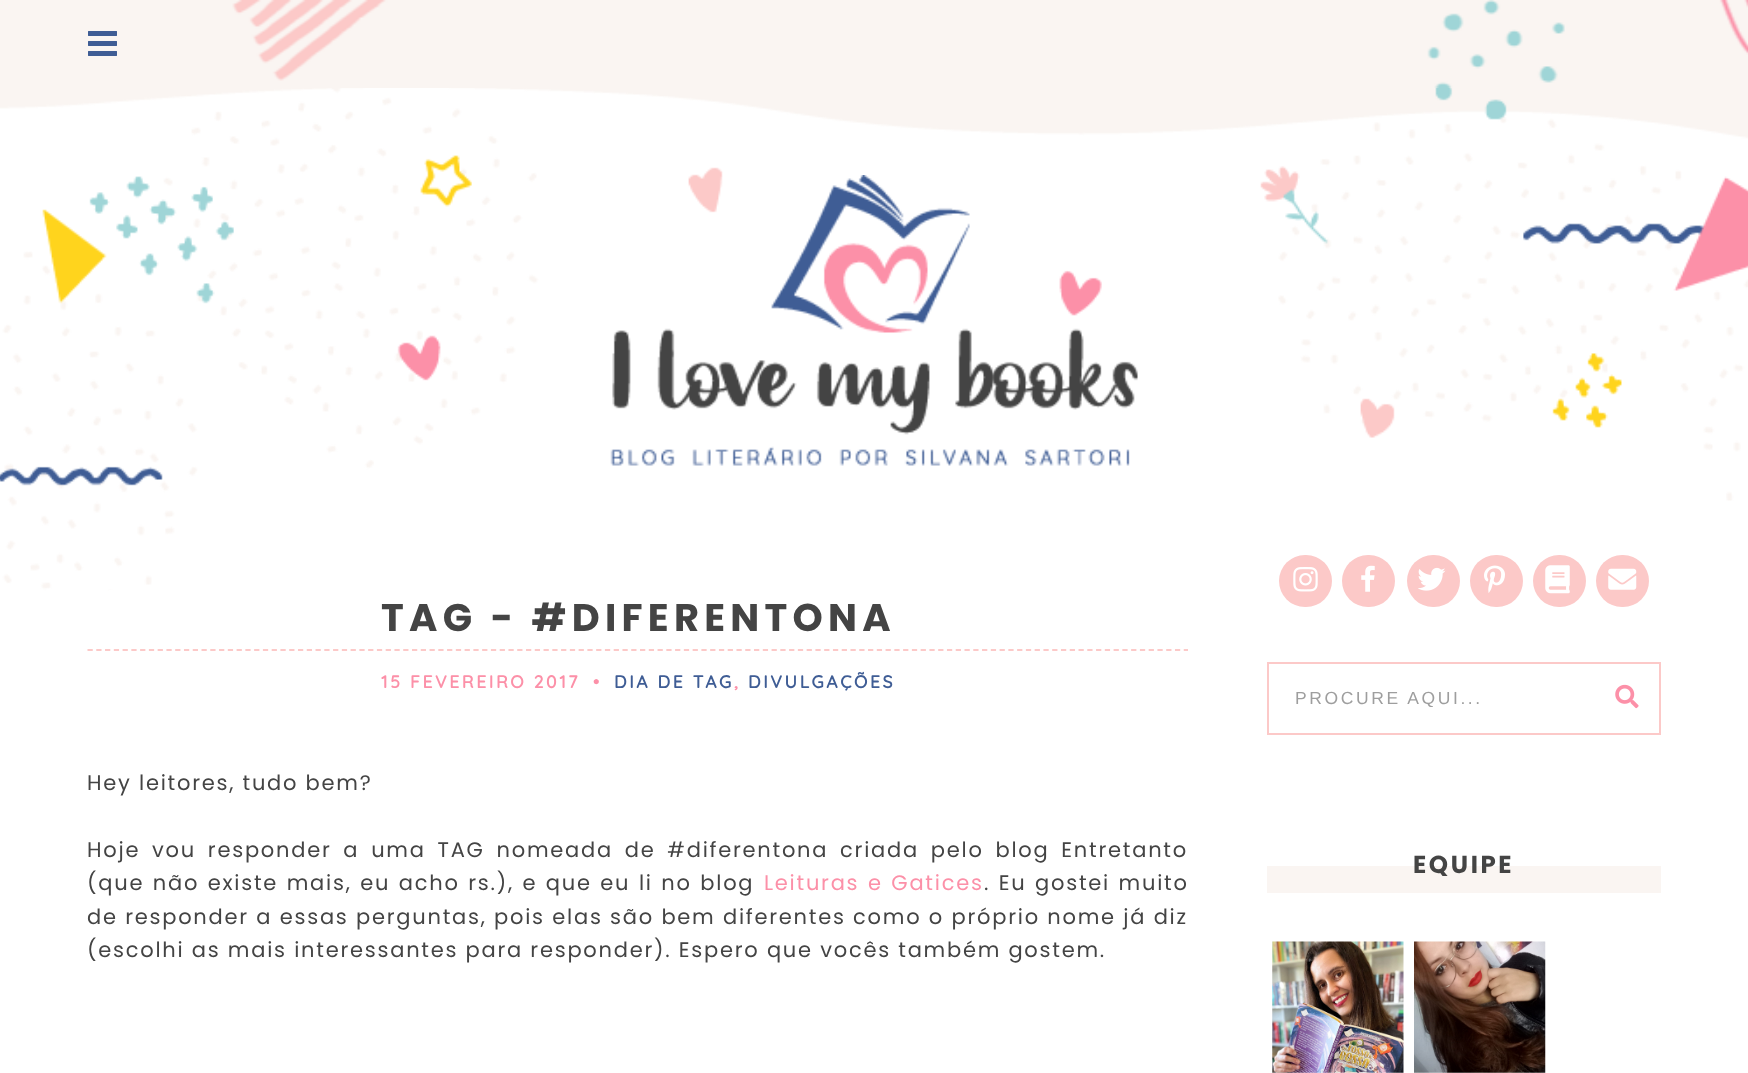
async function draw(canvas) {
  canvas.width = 1748;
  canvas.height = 1073;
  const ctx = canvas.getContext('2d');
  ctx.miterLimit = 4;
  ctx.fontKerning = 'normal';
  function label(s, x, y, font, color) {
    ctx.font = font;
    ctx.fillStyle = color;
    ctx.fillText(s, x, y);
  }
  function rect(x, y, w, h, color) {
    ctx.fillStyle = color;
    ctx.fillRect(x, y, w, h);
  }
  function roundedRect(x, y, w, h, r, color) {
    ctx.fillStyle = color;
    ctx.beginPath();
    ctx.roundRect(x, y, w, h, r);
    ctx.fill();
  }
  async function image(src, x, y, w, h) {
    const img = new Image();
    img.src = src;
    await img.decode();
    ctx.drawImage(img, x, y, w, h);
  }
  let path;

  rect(0, 0, 1748, 1073, '#fff');
  await image('assets/img1.png', 0, 0, 1748, 591);
  await image('assets/img2.png', 232, 0, 1516, 88);
  await image('assets/img3.png', 88, 31, 29, 25);
  await image('assets/img4.png', 610, 175, 528, 291);
  rect(109, 590, 4, 1, '#fff');
  path = new Path2D('M87.5 650H1188');
  ctx.strokeStyle = '#fcc9c8';
  ctx.lineWidth = 1.8;
  ctx.setLineDash([5.25, 3.52]);
  ctx.stroke(path);
  ctx.letterSpacing = '5.25px';
  label('TAG - #DIFERENTONA', 381, 631, 'bold 38.5px Poppins', '#444');
  ctx.letterSpacing = '2.6px';
  label('15 FEVEREIRO 2017', 381, 688, 'bold 17.5px Quicksand', '#fc90a8');
  label('•', 593, 688, 'bold 17.5px Quicksand', '#fc90a8');
  label('DIA DE TAG', 614, 688, 'bold 17.5px Quicksand', '#3f5d95');
  label('DIVULGAÇÕES', 748, 688, 'bold 17.5px Quicksand', '#3f5d95');
  label(',', 734, 688, 'bold 17.5px Quicksand', '#fc90a8');
  ctx.letterSpacing = '1.75px';
  label('Hey leitores, tudo bem?', 87, 790, '21px Poppins', '#444');
  ctx.wordSpacing = '4.5px';
  label('Hoje vou responder a uma TAG nomeada de #diferentona criada pelo blog Entretanto', 87, 857, '21px Poppins', '#444');
  ctx.wordSpacing = '1.25px';
  label('(que não existe mais, eu acho rs.), e que eu li no blog', 87, 890, '21px Poppins', '#444');
  label('Leituras e Gatices', 764, 890, '21px Poppins', '#fc90a8');
  label('. Eu gostei muito', 984, 890, '21px Poppins', '#444');
  ctx.wordSpacing = '0.1px';
  label('de responder a essas perguntas, pois elas são bem diferentes como o próprio nome já diz', 87, 924, '21px Poppins', '#444');
  ctx.wordSpacing = '0px';
  label('(escolhi as mais interessantes para responder). Espero que vocês também gostem.', 87, 957, '21px Poppins', '#444');
  roundedRect(1279, 555, 53, 52, 26, '#fcc9c8');
  await image('assets/img5.png', 1293, 567, 25, 25);
  roundedRect(1342, 555, 53, 52, 26, '#fcc9c8');
  await image('assets/img6.png', 1361, 565, 14, 27);
  roundedRect(1407, 555, 53, 52, 26, '#fcc9c8');
  await image('assets/img7.png', 1418, 567, 28, 24);
  roundedRect(1470, 555, 53, 52, 26, '#fcc9c8');
  await image('assets/img8.png', 1484, 565, 21, 28);
  roundedRect(1533, 555, 53, 52, 26, '#fcc9c8');
  await image('assets/img9.png', 1545, 565, 25, 29);
  roundedRect(1596, 555, 53, 52, 26, '#fcc9c8');
  await image('assets/img10.png', 1608, 568, 29, 22);
  ctx.lineWidth = 2;
  ctx.setLineDash([]);
  ctx.strokeRect(1268, 663, 392, 71);
  ctx.save();
  ctx.beginPath();
  ctx.rect(1295, 688, 273, 19);
  ctx.clip();
  ctx.letterSpacing = '2.6px';
  label('PROCURE AQUI...', 1295, 704, '17.5px Liberation Sans', '#9e9e9e');
  ctx.restore();
  await image('assets/img11.png', 1615, 684, 24, 25);
  rect(1267, 866, 394, 27, '#faf5f2');
  ctx.letterSpacing = '2.6px';
  label('EQUIPE', 1413, 873, 'bold 24.5px Poppins', '#444');
  await image('assets/img12.png', 1272, 941, 132, 132);
  await image('assets/img13.png', 1414, 941, 132, 132);
}

draw(document.querySelector('canvas'));
